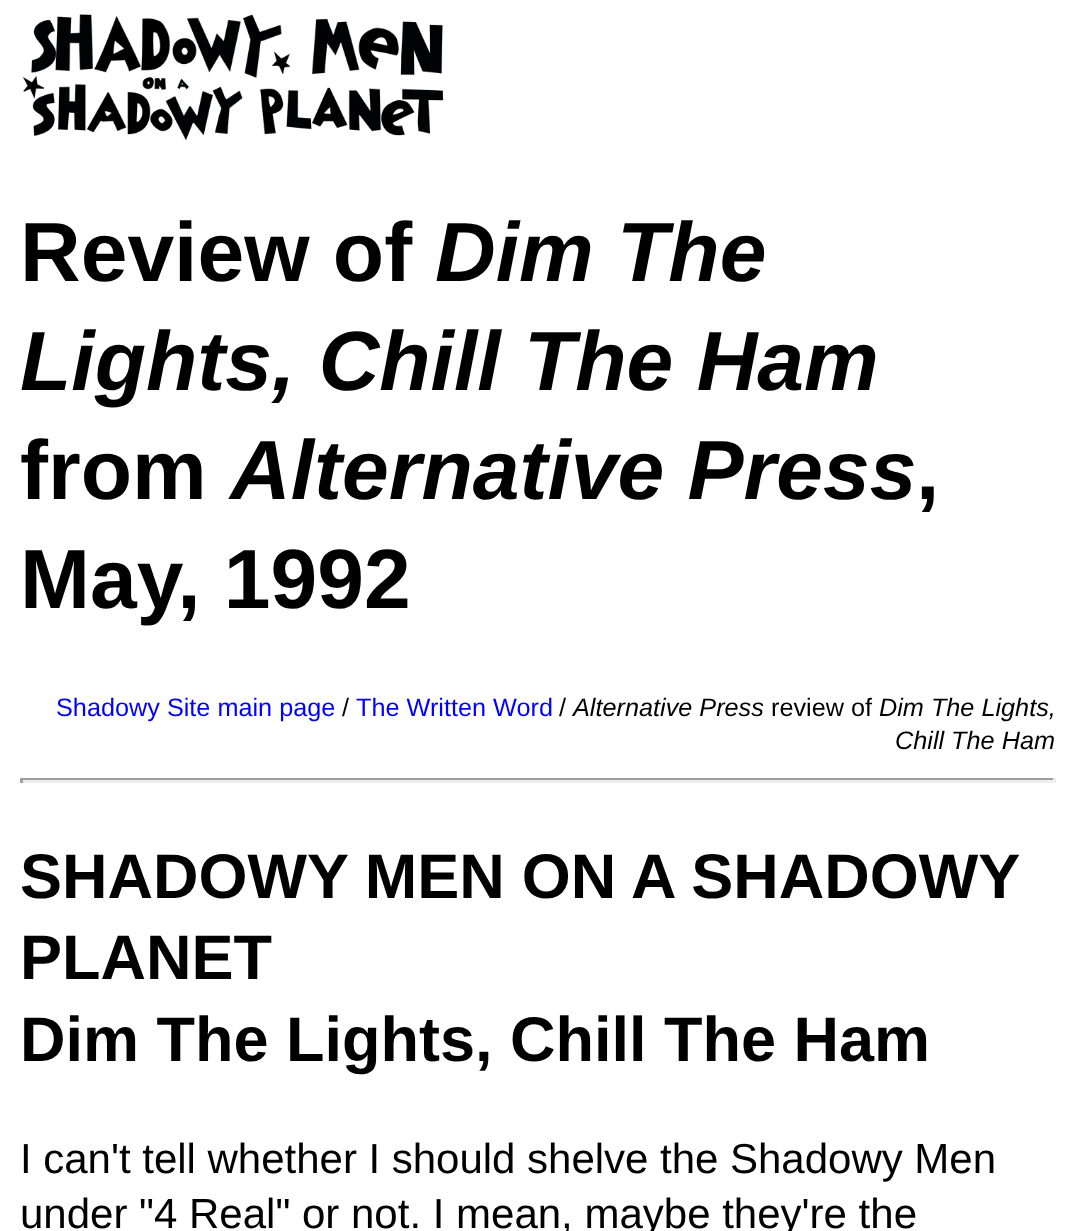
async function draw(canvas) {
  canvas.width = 1073;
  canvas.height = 1231;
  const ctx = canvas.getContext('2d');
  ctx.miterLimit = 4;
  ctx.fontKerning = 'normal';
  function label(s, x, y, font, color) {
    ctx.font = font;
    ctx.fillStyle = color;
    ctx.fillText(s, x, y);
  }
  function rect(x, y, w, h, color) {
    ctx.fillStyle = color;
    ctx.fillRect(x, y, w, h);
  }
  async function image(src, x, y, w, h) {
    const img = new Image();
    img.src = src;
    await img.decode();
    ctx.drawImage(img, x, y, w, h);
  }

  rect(0, 0, 1073, 1231, '#fff');
  await image('assets/img1.png', 23, 14, 421, 126);
  label('Review of', 20, 281, 'bold 84px Liberation Sans', '#000');
  label('Dim The', 435, 281, 'italic bold 84px Liberation Sans', '#000');
  label('Lights, Chill The Ham', 20, 390, 'italic bold 84px Liberation Sans', '#000');
  label('from', 20, 499, 'bold 84px Liberation Sans', '#000');
  label('Alternative Press', 230, 499, 'italic bold 84px Liberation Sans', '#000');
  label(',', 916, 499, 'bold 84px Liberation Sans', '#000');
  label('May, 1992', 20, 608, 'bold 84px Liberation Sans', '#000');
  label('Shadowy Site main page', 56, 716, '25.25px Liberation Sans', '#00f');
  label('/', 342, 716, '25.25px Liberation Sans', '#000');
  label('The Written Word', 356, 716, '25.25px Liberation Sans', '#00f');
  label('/', 559, 716, '25.25px Liberation Sans', '#000');
  label('Alternative Press', 573, 716, 'italic 25.25px Liberation Sans', '#000');
  label('review of', 771, 716, '25.25px Liberation Sans', '#000');
  label('Dim The Lights,', 879, 716, 'italic 25.25px Liberation Sans', '#000');
  label('Chill The Ham', 895, 749, 'italic 25.25px Liberation Sans', '#000');
  rect(20, 778, 1035, 2, '#9f9f9f');
  rect(1053, 778, 3, 5, '#eee');
  rect(20, 780, 1035, 3, '#eee');
  rect(20, 778, 3, 5, '#9f9f9f');
  ctx.wordSpacing = '-0.5px';
  label('SHADOWY MEN ON A SHADOWY', 20, 898, 'bold 63px Liberation Sans', '#000');
  ctx.wordSpacing = '0px';
  label('PLANET', 20, 979, 'bold 63px Liberation Sans', '#000');
  label('Dim The Lights, Chill The Ham', 20, 1061, 'bold 63px Liberation Sans', '#000');
  ctx.wordSpacing = '-0.1px';
  label('I can\'t tell whether I should shelve the Shadowy Men', 20, 1173, '42px Liberation Sans', '#000');
  ctx.wordSpacing = '0px';
  label('under "4 Real" or not. I mean, maybe they\'re the', 20, 1228, '42px Liberation Sans', '#000');
}

draw(document.querySelector('canvas'));
